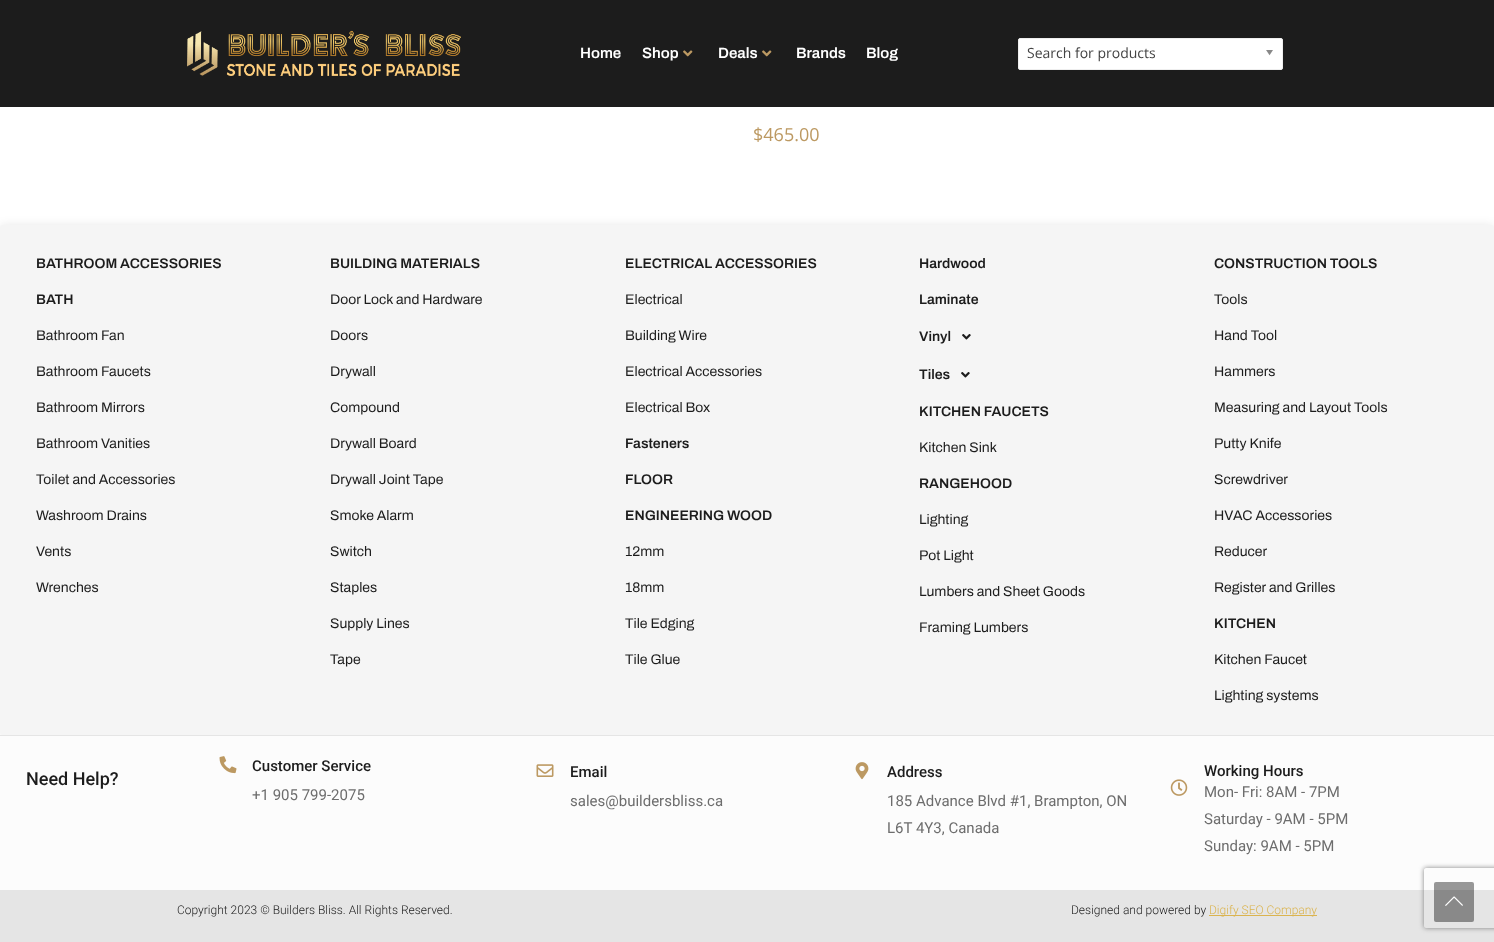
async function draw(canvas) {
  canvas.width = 1494;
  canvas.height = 942;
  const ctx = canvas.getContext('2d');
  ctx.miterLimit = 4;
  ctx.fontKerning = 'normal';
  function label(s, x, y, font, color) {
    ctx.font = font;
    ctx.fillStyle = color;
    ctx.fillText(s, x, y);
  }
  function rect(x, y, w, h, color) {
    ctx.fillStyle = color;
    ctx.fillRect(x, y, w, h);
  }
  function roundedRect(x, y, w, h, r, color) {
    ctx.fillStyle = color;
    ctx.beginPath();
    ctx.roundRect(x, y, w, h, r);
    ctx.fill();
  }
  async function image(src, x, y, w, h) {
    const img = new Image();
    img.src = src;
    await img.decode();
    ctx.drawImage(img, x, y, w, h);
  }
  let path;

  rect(0, 0, 1494, 942, '#fff');
  rect(0, 0, 1494, 107, '#1c1c1c');
  await image('assets/img1.png', 187, 30, 274, 46);
  label('Home', 580, 58, '600 15px Archivo', '#fff');
  label('Shop', 642, 58, '600 15px Archivo', '#fff');
  await image('assets/img2.png', 683, 50, 10, 7);
  label('Deals', 718, 58, '600 15px Archivo', '#fff');
  await image('assets/img2.png', 762, 50, 10, 7);
  label('Brands', 796, 58, '600 15px Archivo', '#fff');
  label('Blog', 866, 58, '600 15px Archivo', '#fff');
  ctx.beginPath();
  ctx.roundRect(1018.5, 38.5, 264, 31, 1.5);
  ctx.fill();
  ctx.strokeStyle = '#eee';
  ctx.stroke();
  label('Search for products', 1027, 58, '14px Open Sans', '#444');
  await image('assets/img3.png', 1266, 50, 7, 6);
  label('$465.00', 753, 141, '18px Open Sans', '#bc9962');
  ctx.fillStyle = '#00000017';
  ctx.filter = 'blur(5px)';
  ctx.beginPath();
  ctx.roundRect(0, 225, 1494, 510, 3);
  ctx.fill();
  ctx.filter = 'none';
  roundedRect(0, 225, 1494, 510, 3, '#f5f5f5');
  label('BATHROOM ACCESSORIES', 36, 268, '600 14px Archivo', '#1c1c1c');
  label('BATH', 36, 304, '600 14px Archivo', '#1c1c1c');
  label('Bathroom Fan', 36, 340, '14px Archivo', '#1c1c1c');
  label('Bathroom Faucets', 36, 376, '14px Archivo', '#1c1c1c');
  label('Bathroom Mirrors', 36, 412, '14px Archivo', '#1c1c1c');
  label('Bathroom Vanities', 36, 448, '14px Archivo', '#1c1c1c');
  label('Toilet and Accessories', 36, 484, '14px Archivo', '#1c1c1c');
  label('Washroom Drains', 36, 520, '14px Archivo', '#1c1c1c');
  label('Vents', 36, 556, '14px Archivo', '#1c1c1c');
  label('Wrenches', 36, 592, '14px Archivo', '#1c1c1c');
  label('BUILDING MATERIALS', 330, 268, '600 14px Archivo', '#1c1c1c');
  label('Door Lock and Hardware', 330, 304, '14px Archivo', '#1c1c1c');
  label('Doors', 330, 340, '14px Archivo', '#1c1c1c');
  label('Drywall', 330, 376, '14px Archivo', '#1c1c1c');
  label('Compound', 330, 412, '14px Archivo', '#1c1c1c');
  label('Drywall Board', 330, 448, '14px Archivo', '#1c1c1c');
  label('Drywall Joint Tape', 330, 484, '14px Archivo', '#1c1c1c');
  label('Smoke Alarm', 330, 520, '14px Archivo', '#1c1c1c');
  label('Switch', 330, 556, '14px Archivo', '#1c1c1c');
  label('Staples', 330, 592, '14px Archivo', '#1c1c1c');
  label('Supply Lines', 330, 628, '14px Archivo', '#1c1c1c');
  label('Tape', 330, 664, '14px Archivo', '#1c1c1c');
  label('ELECTRICAL ACCESSORIES', 625, 268, '600 14px Archivo', '#1c1c1c');
  label('Electrical', 625, 304, '14px Archivo', '#1c1c1c');
  label('Building Wire', 625, 340, '14px Archivo', '#1c1c1c');
  label('Electrical Accessories', 625, 376, '14px Archivo', '#1c1c1c');
  label('Electrical Box', 625, 412, '14px Archivo', '#1c1c1c');
  label('Fasteners', 625, 448, '600 14px Archivo', '#1c1c1c');
  label('FLOOR', 625, 484, '600 14px Archivo', '#1c1c1c');
  label('ENGINEERING WOOD', 625, 520, '600 14px Archivo', '#1c1c1c');
  label('12mm', 625, 556, '14px Archivo', '#1c1c1c');
  label('18mm', 625, 592, '14px Archivo', '#1c1c1c');
  label('Tile Edging', 625, 628, '14px Archivo', '#1c1c1c');
  label('Tile Glue', 625, 664, '14px Archivo', '#1c1c1c');
  label('Hardwood', 919, 268, '600 14px Archivo', '#1c1c1c');
  label('Laminate', 919, 304, '600 14px Archivo', '#1c1c1c');
  label('Vinyl', 919, 341, '600 14px Archivo', '#1c1c1c');
  await image('assets/img4.png', 962, 334, 9, 6);
  label('Tiles', 919, 379, '600 14px Archivo', '#1c1c1c');
  await image('assets/img4.png', 961, 372, 9, 6);
  label('KITCHEN FAUCETS', 919, 416, '600 14px Archivo', '#1c1c1c');
  label('Kitchen Sink', 919, 452, '14px Archivo', '#1c1c1c');
  label('RANGEHOOD', 919, 488, '600 14px Archivo', '#1c1c1c');
  label('Lighting', 919, 524, '14px Archivo', '#1c1c1c');
  label('Pot Light', 919, 560, '14px Archivo', '#1c1c1c');
  label('Lumbers and Sheet Goods', 919, 596, '14px Archivo', '#1c1c1c');
  label('Framing Lumbers', 919, 632, '14px Archivo', '#1c1c1c');
  label('CONSTRUCTION TOOLS', 1214, 268, '600 14px Archivo', '#1c1c1c');
  label('Tools', 1214, 304, '14px Archivo', '#1c1c1c');
  label('Hand Tool', 1214, 340, '14px Archivo', '#1c1c1c');
  label('Hammers', 1214, 376, '14px Archivo', '#1c1c1c');
  label('Measuring and Layout Tools', 1214, 412, '14px Archivo', '#1c1c1c');
  label('Putty Knife', 1214, 448, '14px Archivo', '#1c1c1c');
  label('Screwdriver', 1214, 484, '14px Archivo', '#1c1c1c');
  label('HVAC Accessories', 1214, 520, '14px Archivo', '#1c1c1c');
  label('Reducer', 1214, 556, '14px Archivo', '#1c1c1c');
  label('Register and Grilles', 1214, 592, '14px Archivo', '#1c1c1c');
  label('KITCHEN', 1214, 628, '600 14px Archivo', '#1c1c1c');
  label('Kitchen Faucet', 1214, 664, '14px Archivo', '#1c1c1c');
  label('Lighting systems', 1214, 700, '14px Archivo', '#1c1c1c');
  rect(0, 736, 1494, 154, '#fcfcfc');
  rect(0, 735, 1494, 1, '#e5e5e5');
  label('Need Help?', 26, 785, '500 18px Roboto', '#1c1c1c');
  await image('assets/img5.png', 219, 756, 18, 18);
  label('Customer Service', 252, 771, '500 15px Roboto', '#1c1c1c');
  label('+1 905 799-2075', 252, 800, '15px Roboto', '#6d6d6d');
  await image('assets/img6.png', 536, 764, 18, 13);
  label('Email', 570, 777, '500 15px Roboto', '#1c1c1c');
  label('sales@buildersbliss.ca', 570, 806, '15px Roboto', '#6d6d6d');
  await image('assets/img7.png', 855, 762, 14, 18);
  label('Address', 887, 777, '500 15px Roboto', '#1c1c1c');
  label('185 Advance Blvd #1, Brampton, ON', 887, 806, '15px Roboto', '#6d6d6d');
  label('L6T 4Y3, Canada', 887, 833, '15px Roboto', '#6d6d6d');
  label('Working Hours', 1204, 776, '500 15px Roboto', '#1c1c1c');
  await image('assets/img8.png', 1170, 779, 18, 17);
  label('Mon- Fri: 8AM - 7PM', 1204, 797, '15px Roboto', '#6d6d6d');
  label('Saturday - 9AM - 5PM', 1204, 824, '15px Roboto', '#6d6d6d');
  label('Sunday: 9AM - 5PM', 1204, 851, '15px Roboto', '#6d6d6d');
  rect(0, 890, 1494, 52, '#e5e5e5');
  label('Copyright 2023 © Builders Bliss. All Rights Reserved.', 177, 914, '300 12px Roboto', '#1c1c1c');
  label('Designed and powered by', 1071, 914, '300 12px Roboto', '#1c1c1c');
  rect(1209, 915, 108, 1, '#dbb44f');
  label('Digify SEO Company', 1209, 914, '300 12px Roboto', '#dbb44f');
  ctx.save();
  path = new Path2D('M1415 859H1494V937H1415ZM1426 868H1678C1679 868 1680 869 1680 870V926C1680 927 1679 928 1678 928H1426C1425 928 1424 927 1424 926V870C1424 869 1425 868 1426 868Z');
  ctx.clip(path, 'evenodd');
  ctx.fillStyle = '#808080';
  ctx.filter = 'blur(2.5px)';
  ctx.beginPath();
  ctx.roundRect(1424, 868, 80, 60, 2);
  ctx.fill();
  ctx.filter = 'none';
  ctx.restore();
  roundedRect(1434, 882, 40, 40, 2, '#00000066');
  await image('assets/img9.png', 1445, 896, 18, 10);
}

draw(document.querySelector('canvas'));
